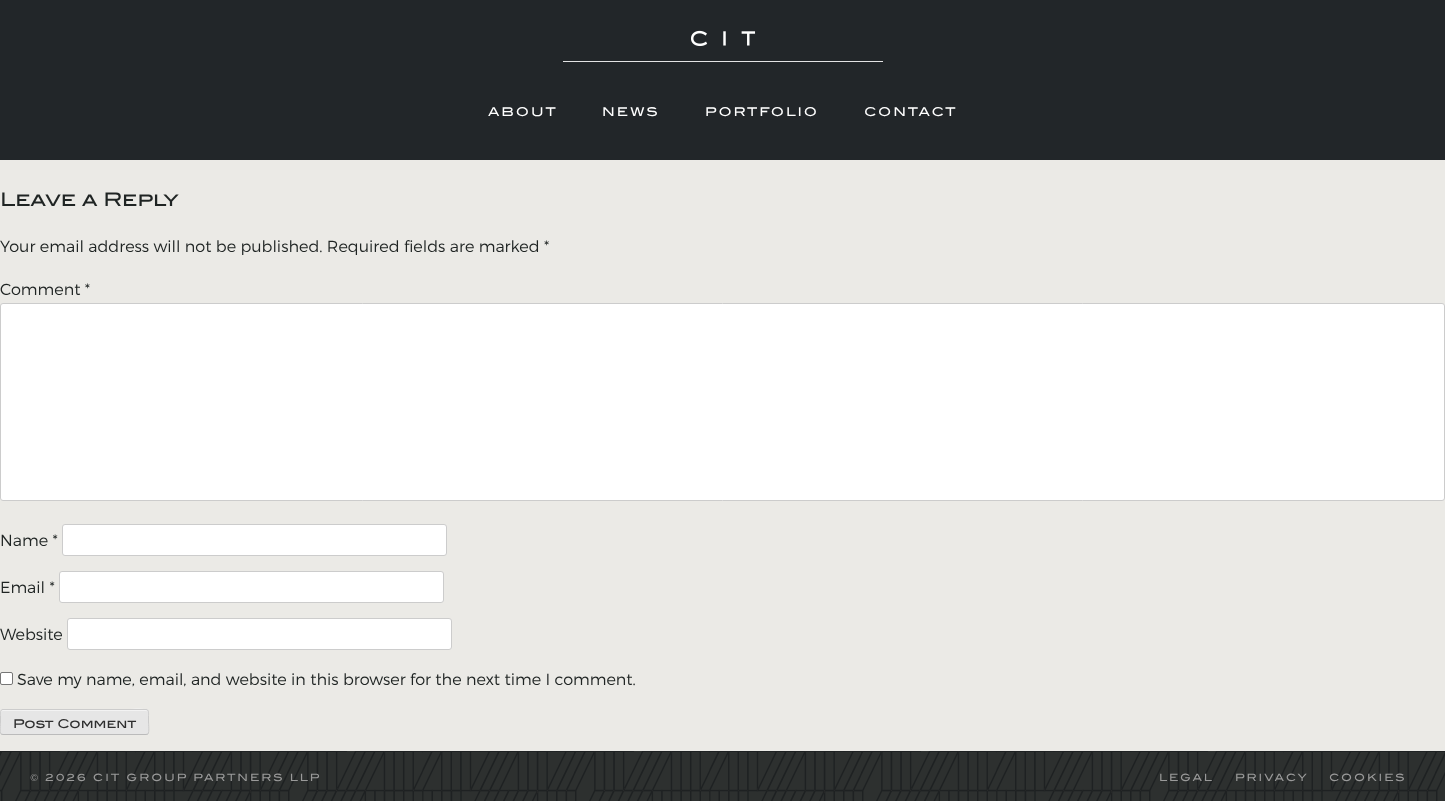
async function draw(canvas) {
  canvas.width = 1445;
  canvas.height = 801;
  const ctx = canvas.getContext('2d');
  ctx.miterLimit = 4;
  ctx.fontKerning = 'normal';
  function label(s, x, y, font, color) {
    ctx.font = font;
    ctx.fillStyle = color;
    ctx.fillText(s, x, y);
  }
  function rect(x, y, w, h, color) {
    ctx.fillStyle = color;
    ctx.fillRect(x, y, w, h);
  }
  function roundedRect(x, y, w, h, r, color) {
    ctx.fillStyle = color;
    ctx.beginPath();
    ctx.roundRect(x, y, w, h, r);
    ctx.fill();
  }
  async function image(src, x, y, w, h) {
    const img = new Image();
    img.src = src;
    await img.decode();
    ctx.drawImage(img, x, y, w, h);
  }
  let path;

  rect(0, 0, 1445, 801, '#ebeae6');
  rect(0, 0, 1445, 160, '#222629');
  await image('assets/img1.png', 563, 30, 320, 32);
  ctx.letterSpacing = '2px';
  label('ABOUT', 488, 116, '12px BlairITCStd', '#fff');
  label('NEWS', 602, 116, '12px BlairITCStd', '#fff');
  label('PORTFOLIO', 705, 116, '12px BlairITCStd', '#fff');
  label('CONTACT', 864, 116, '12px BlairITCStd', '#fff');
  ctx.letterSpacing = '0px';
  label('Leave a Reply', 0, 206, '18.75px BlairITCStd', '#1f2423');
  label('Your email address will not be published. Required fields are marked *', 0, 252, '300 16px Montserrat', '#1f2423');
  label('Comment *', 0, 295, '300 16px Montserrat', '#1f2423');
  ctx.fillStyle = '#fff';
  ctx.beginPath();
  ctx.roundRect(0.5, 303.5, 1444, 197, 2.5);
  ctx.fill();
  ctx.strokeStyle = '#ccc';
  ctx.stroke();
  label('Name *', 0, 546, '300 16px Montserrat', '#1f2423');
  ctx.fillStyle = '#fff';
  ctx.beginPath();
  ctx.roundRect(62.5, 524.5, 384, 31, 2.5);
  ctx.fill();
  ctx.stroke();
  label('Email *', 0, 593, '300 16px Montserrat', '#1f2423');
  ctx.fillStyle = '#fff';
  ctx.beginPath();
  ctx.roundRect(59.5, 571.5, 384, 31, 2.5);
  ctx.fill();
  ctx.stroke();
  label('Website', 0, 640, '300 16px Montserrat', '#1f2423');
  ctx.fillStyle = '#fff';
  ctx.beginPath();
  ctx.roundRect(67.5, 618.5, 384, 31, 2.5);
  ctx.fill();
  ctx.stroke();
  ctx.beginPath();
  ctx.roundRect(0.5, 672.5, 12, 12, 1.5);
  ctx.fill();
  ctx.strokeStyle = '#767676';
  ctx.stroke();
  label('Save my name, email, and website in this browser for the next time I comment.', 17, 685, '300 16px Montserrat', '#1f2423');
  roundedRect(0, 709, 149, 26, 3, '#e6e6e6');
  ctx.fillStyle = '#f3f3f3';
  path = new Path2D('M3 711H146C147 711 148 712 148 713C148 705 126 710 122 710H2C1 711 1 712 1 713C1 712 2 711 3 711Z');
  ctx.fill(path);
  path = new Path2D('M148 734L146 734.5H3L1 734');
  ctx.strokeStyle = '#bbb';
  ctx.stroke(path);
  path = new Path2D('M1 734C-.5 732 .5 724.5 .5 722V715.5C.5 713.5 0 709.5 3 709.5H146C149 709.5 148.5 713.5 148.5 715.5V722C148.5 724.5 149.5 732 148 734');
  ctx.strokeStyle = '#ccc';
  ctx.stroke(path);
  label('Post Comment', 13, 728, '12px BlairITCStd', '#2e2e2e');
  await image('assets/img2.png', 0, 751, 1445, 50);
  ctx.letterSpacing = '2px';
  label('© 2026 CIT GROUP PARTNERS LLP', 30, 781, '10px BlairITCStd', '#9a9a9a');
  label('LEGAL', 1159, 781, '10px BlairITCStd', '#9a9a9a');
  label('PRIVACY', 1235, 781, '10px BlairITCStd', '#9a9a9a');
  label('COOKIES', 1329, 781, '10px BlairITCStd', '#9a9a9a');
}

draw(document.querySelector('canvas'));
